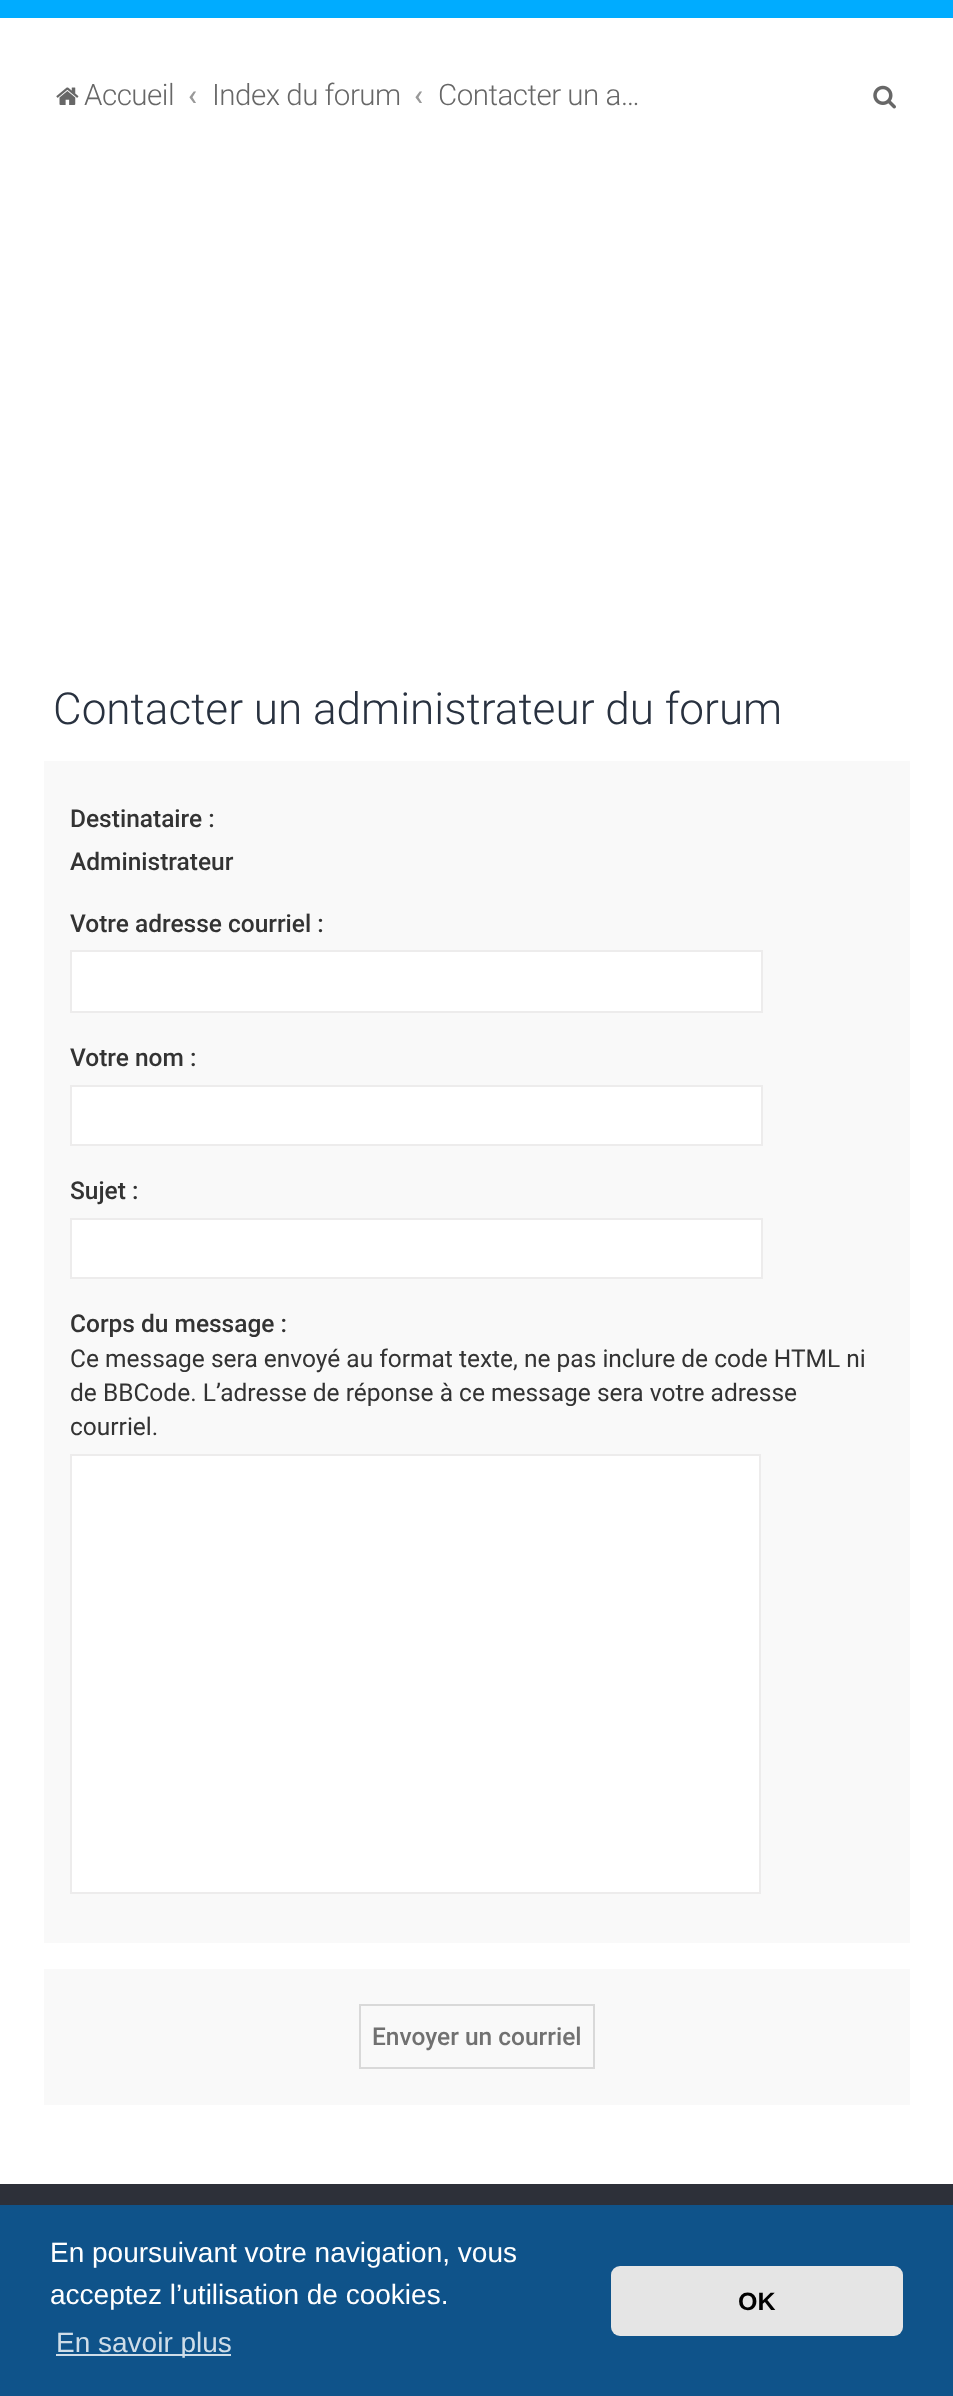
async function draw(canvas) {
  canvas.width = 953;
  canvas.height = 2396;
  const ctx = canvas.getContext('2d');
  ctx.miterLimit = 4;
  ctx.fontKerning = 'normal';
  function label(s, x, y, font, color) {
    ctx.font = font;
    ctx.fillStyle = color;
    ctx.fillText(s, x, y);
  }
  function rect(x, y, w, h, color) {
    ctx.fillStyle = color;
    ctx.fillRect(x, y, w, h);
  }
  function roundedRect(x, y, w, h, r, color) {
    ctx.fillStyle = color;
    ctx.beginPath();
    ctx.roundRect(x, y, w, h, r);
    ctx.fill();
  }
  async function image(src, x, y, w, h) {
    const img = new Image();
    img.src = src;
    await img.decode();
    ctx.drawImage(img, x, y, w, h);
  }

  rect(0, 0, 953, 2396, '#2d3039');
  rect(0, 0, 953, 18, '#00acff');
  rect(0, 18, 953, 2166, '#fff');
  await image('assets/img1.png', 56, 87, 23, 18);
  ctx.letterSpacing = '-0.5px';
  label('Accueil', 84, 105, '300 29.5px Roboto', '#676767');
  ctx.letterSpacing = '0px';
  label('‹', 188, 105, '500 29.5px Roboto', '#999');
  ctx.letterSpacing = '-0.5px';
  label('Index du forum', 212, 105, '300 29.5px Roboto', '#676767');
  ctx.letterSpacing = '0px';
  label('‹', 414, 105, '500 29.5px Roboto', '#999');
  ctx.letterSpacing = '-0.5px';
  label('Contacter un a…', 438, 105, '300 29.5px Roboto', '#676767');
  await image('assets/img2.png', 873, 85, 23, 24);
  ctx.letterSpacing = '0px';
  label('Contacter un administrateur du forum', 53, 724, '300 44.1px Roboto', '#28313f');
  rect(44, 761, 866, 1182, '#f9f9f9');
  label('Destinataire :', 70, 827, '500 24.5px Roboto', '#333');
  label('Administrateur', 70, 870, '500 24.5px Roboto', '#333');
  label('Votre adresse courriel :', 70, 932, '500 24.5px Roboto', '#333');
  ctx.fillStyle = '#fff';
  ctx.beginPath();
  ctx.rect(71, 951, 691, 61);
  ctx.fill();
  ctx.strokeStyle = '#edecec';
  ctx.lineWidth = 2;
  ctx.stroke();
  label('Votre nom :', 70, 1066, '500 24.5px Roboto', '#333');
  ctx.fillStyle = '#fff';
  ctx.beginPath();
  ctx.rect(71, 1086, 691, 59);
  ctx.fill();
  ctx.stroke();
  label('Sujet :', 70, 1199, '500 24.5px Roboto', '#333');
  ctx.fillStyle = '#fff';
  ctx.beginPath();
  ctx.rect(71, 1219, 691, 59);
  ctx.fill();
  ctx.stroke();
  label('Corps du message :', 70, 1332, '500 24.5px Roboto', '#333');
  label('Ce message sera envoyé au format texte, ne pas inclure de code HTML ni', 70, 1367, '24.5px Roboto', '#333');
  label('de BBCode. L’adresse de réponse à ce message sera votre adresse', 70, 1401, '24.5px Roboto', '#333');
  label('courriel.', 70, 1435, '24.5px Roboto', '#333');
  ctx.fillStyle = '#fff';
  ctx.beginPath();
  ctx.rect(71, 1455, 689, 438);
  ctx.fill();
  ctx.stroke();
  rect(44, 1969, 866, 136, '#f9f9f9');
  ctx.strokeStyle = '#d9d9d9';
  ctx.strokeRect(360, 2005, 234, 63);
  label('Envoyer un courriel', 372, 2045, '500 24.5px Roboto', '#717171');
  rect(0, 2205, 953, 191, '#0f538a');
  label('En poursuivant votre navigation, vous', 50, 2262, '28px Liberation Sans', '#fff');
  label('acceptez l’utilisation de cookies.', 50, 2304, '28px Liberation Sans', '#fff');
  rect(56, 2354, 175, 2, '#cfdde8');
  label('En savoir plus', 56, 2352, '28px Liberation Sans', '#cfdde8');
  roundedRect(611, 2266, 292, 70, 9, '#e5e5e5');
  label('OK', 738, 2310, 'bold 25px Liberation Sans', '#000');
}

draw(document.querySelector('canvas'));
